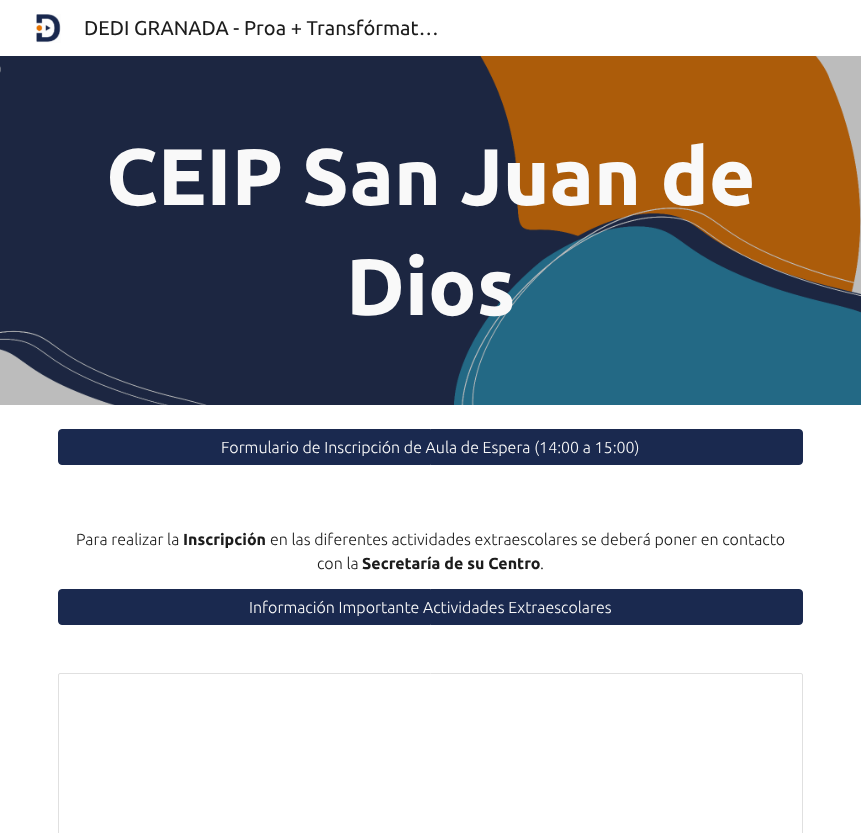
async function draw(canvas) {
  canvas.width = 861;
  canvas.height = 833;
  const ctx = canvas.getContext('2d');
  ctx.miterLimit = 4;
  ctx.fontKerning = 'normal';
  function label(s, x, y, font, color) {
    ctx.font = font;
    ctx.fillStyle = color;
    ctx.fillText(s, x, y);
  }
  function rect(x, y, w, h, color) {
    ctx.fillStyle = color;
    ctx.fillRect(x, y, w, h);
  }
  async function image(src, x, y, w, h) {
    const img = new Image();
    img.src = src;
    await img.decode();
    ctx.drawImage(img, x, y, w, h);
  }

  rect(0, 0, 861, 833, '#fff');
  await image('assets/img1.png', 36, 14, 25, 29);
  label('DEDI GRANADA - Proa + Transfórmat…', 84, 35, '20px Ubuntu', '#1c1c1c');
  await image('assets/img2.png', 0, 56, 861, 349);
  label('CEIP San Juan de', 106, 205, 'bold 80px Ubuntu', '#f9f9f9');
  label('Dios', 346, 315, 'bold 80px Ubuntu', '#f9f9f9');
  ctx.fillStyle = '#1a294f';
  ctx.beginPath();
  ctx.roundRect(58.5, 429.5, 744, 35, 3.5);
  ctx.fill();
  ctx.strokeStyle = '#1a294f';
  ctx.stroke();
  label('Formulario de Inscripción de Aula de Espera (14:00 a 15:00)', 221, 453, '300 16px Ubuntu', '#f9f9f9');
  label('Para realizar la', 76, 545, '300 16px Ubuntu', '#1c1c1c');
  label('Inscripción', 183, 545, 'bold 16px Ubuntu', '#1c1c1c');
  label('en las diferentes actividades extraescolares se deberá poner en contacto', 270, 545, '300 16px Ubuntu', '#1c1c1c');
  label('con la', 317, 569, '300 16px Ubuntu', '#1c1c1c');
  label('Secretaría de su Centro', 362, 569, 'bold 16px Ubuntu', '#1c1c1c');
  label('.', 540, 569, '300 16px Ubuntu', '#1c1c1c');
  ctx.fillStyle = '#1a294f';
  ctx.beginPath();
  ctx.roundRect(58.5, 589.5, 744, 35, 3.5);
  ctx.fill();
  ctx.stroke();
  label('Información Importante Actividades Extraescolares', 249, 613, '300 16px Ubuntu', '#f9f9f9');
  ctx.beginPath();
  ctx.roundRect(58.5, 673.5, 744, 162, 1.5);
  ctx.strokeStyle = '#e0e0e0';
  ctx.stroke();
}

draw(document.querySelector('canvas'));
